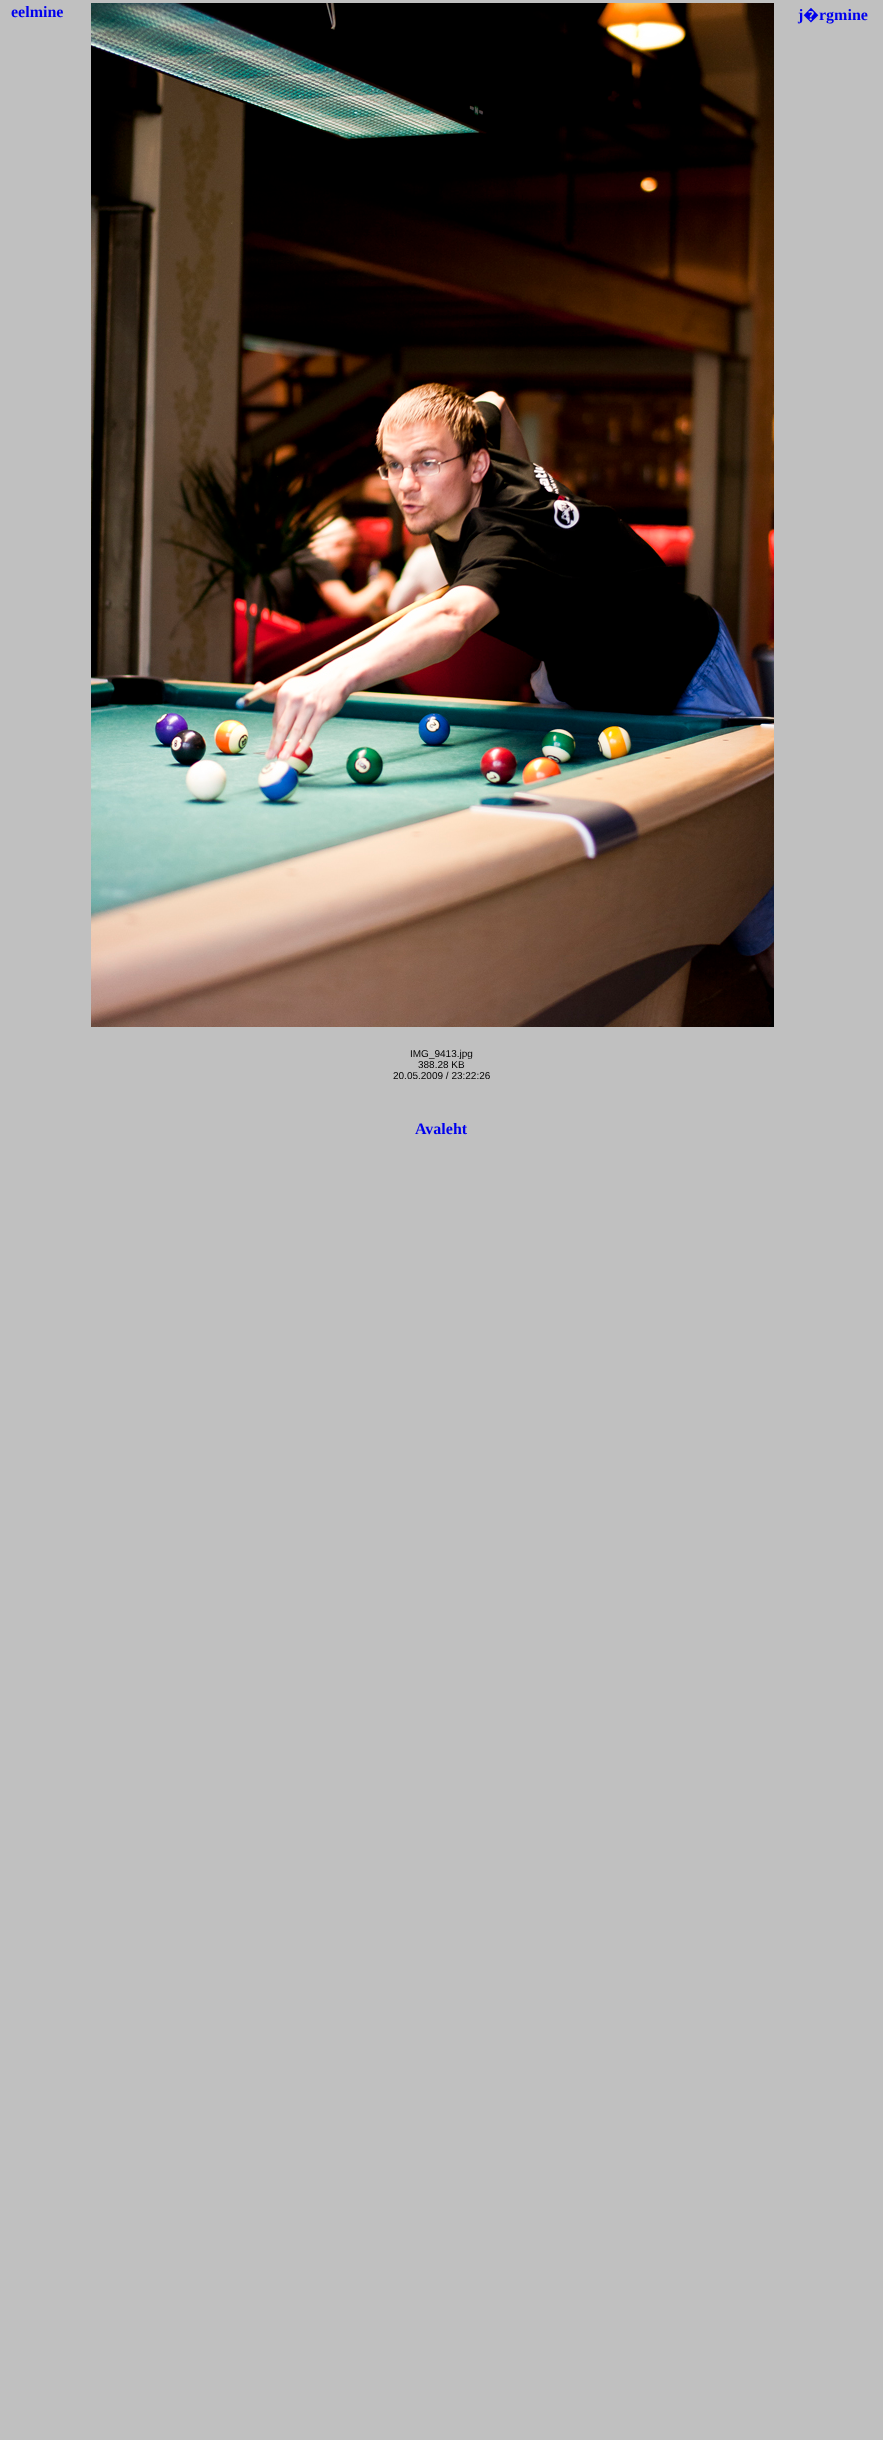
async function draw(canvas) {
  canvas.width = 883;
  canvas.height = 2440;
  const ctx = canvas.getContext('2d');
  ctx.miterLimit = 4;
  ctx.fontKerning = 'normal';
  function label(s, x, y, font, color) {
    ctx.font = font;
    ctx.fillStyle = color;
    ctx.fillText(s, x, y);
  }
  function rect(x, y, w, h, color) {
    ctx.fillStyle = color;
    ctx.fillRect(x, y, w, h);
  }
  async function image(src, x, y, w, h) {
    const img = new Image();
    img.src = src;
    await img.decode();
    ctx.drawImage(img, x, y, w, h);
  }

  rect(0, 0, 883, 2440, '#c0c0c0');
  label('eelmine', 11, 17, 'bold 16px Liberation Serif', '#00e');
  await image('assets/img1.png', 91, 3, 683, 1024);
  label('j', 798, 20, 'bold 16px Liberation Serif', '#00e');
  label('�', 803, 20, 'bold 16px Noto Sans', '#00e');
  label('rgmine', 819, 20, 'bold 16px Liberation Serif', '#00e');
  label('IMG_9413.jpg', 410, 1057, '10px Liberation Sans', '#000');
  label('388.28 KB', 418, 1068, '10px Liberation Sans', '#000');
  label('20.05.2009 / 23:22:26', 393, 1079, '10px Liberation Sans', '#000');
  label('Avaleht', 415, 1134, 'bold 16px Liberation Serif', '#00e');
}

draw(document.querySelector('canvas'));
